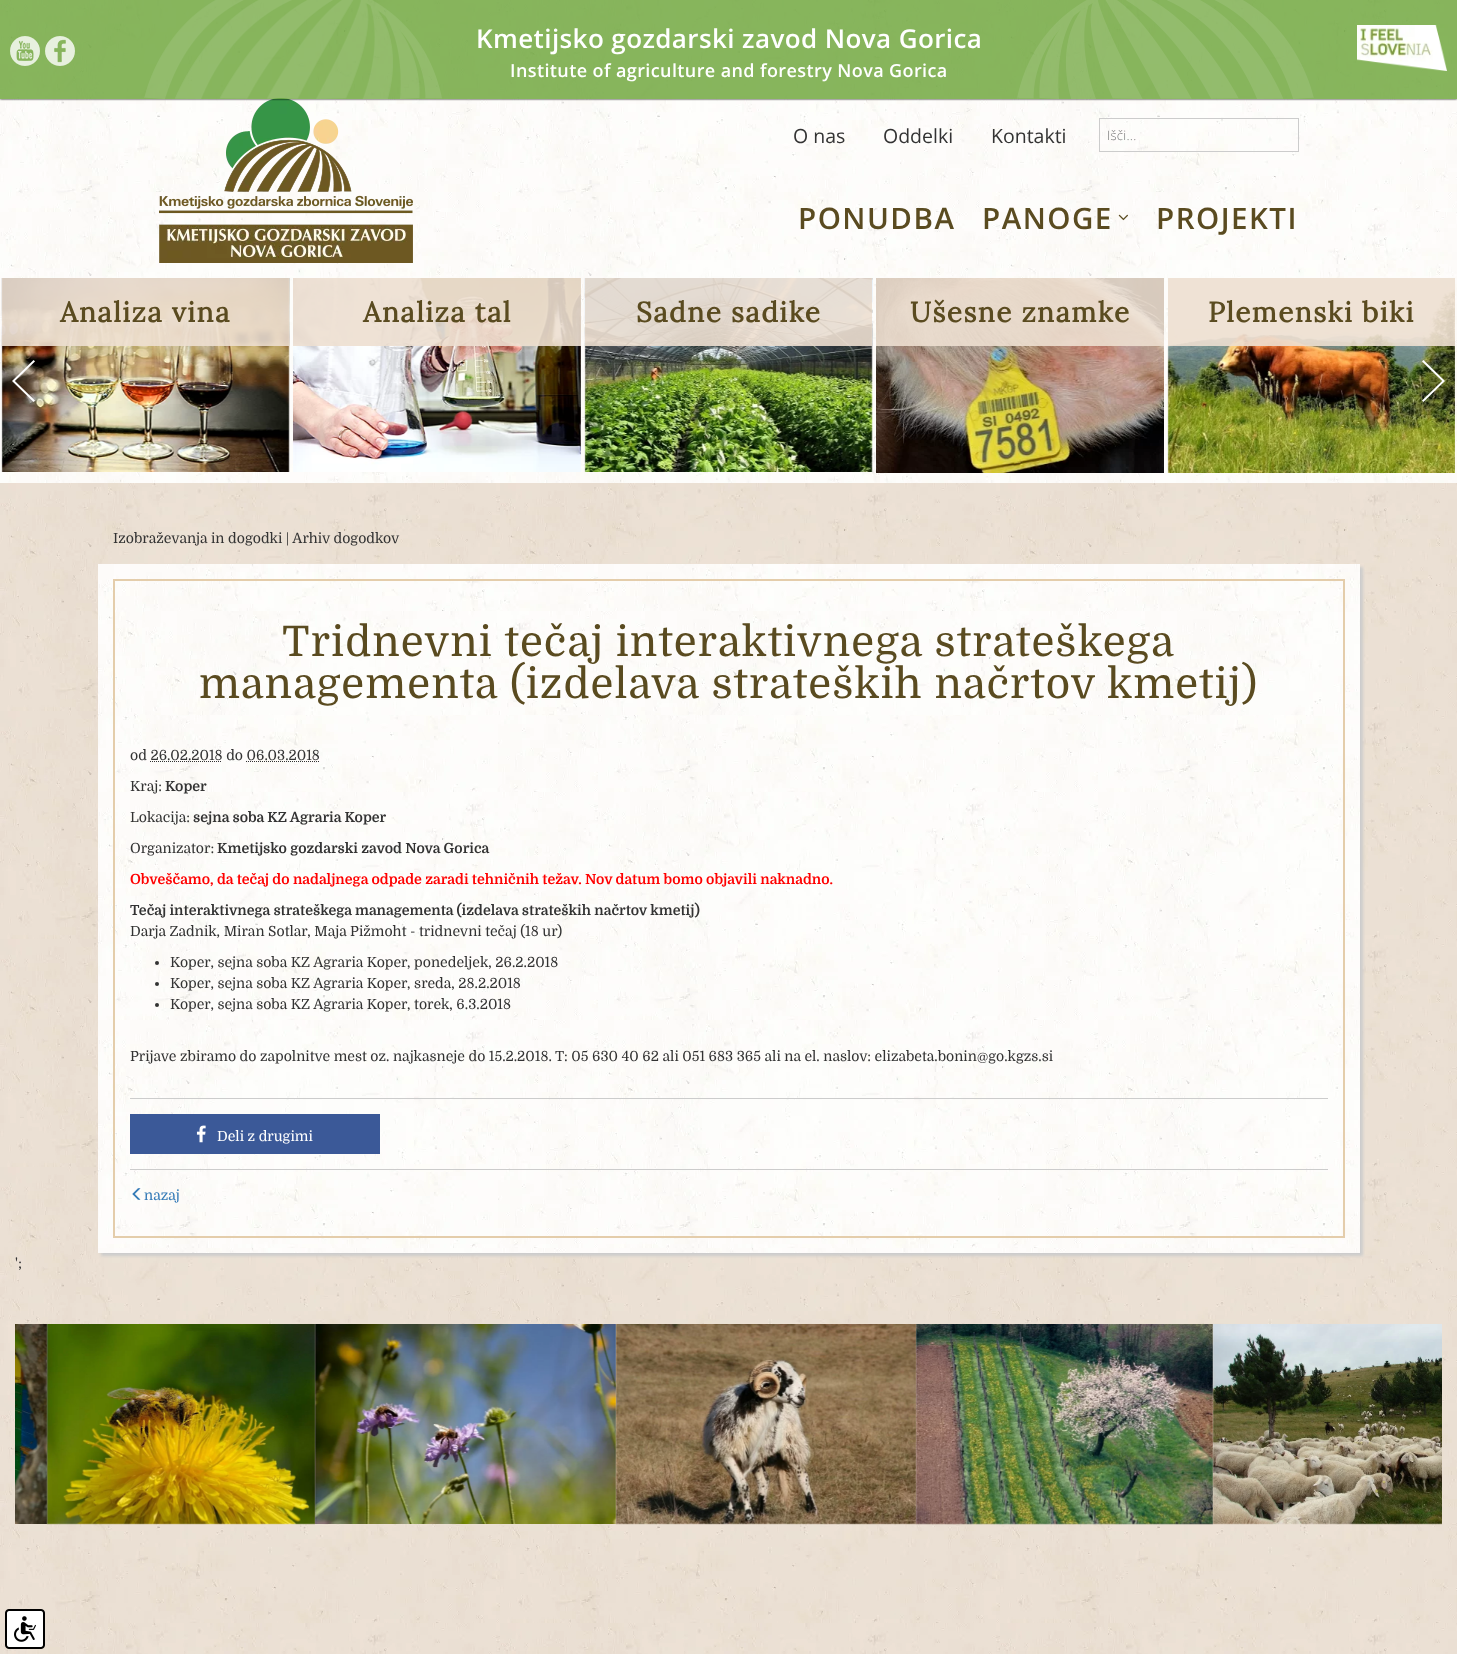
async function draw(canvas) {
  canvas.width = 1457;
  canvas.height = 1654;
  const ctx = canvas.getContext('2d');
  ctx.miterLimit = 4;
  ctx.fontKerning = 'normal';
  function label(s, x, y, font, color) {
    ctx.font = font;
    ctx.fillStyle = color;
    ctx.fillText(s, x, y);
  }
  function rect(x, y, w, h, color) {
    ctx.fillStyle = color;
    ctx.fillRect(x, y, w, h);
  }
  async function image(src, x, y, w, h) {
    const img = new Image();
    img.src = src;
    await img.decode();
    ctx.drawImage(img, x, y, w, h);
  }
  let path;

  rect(0, 0, 1457, 1654, '#fff');
  await image('assets/img1.png', 0, 0, 1457, 483);
  await image('assets/img6.png', 159, 98, 254, 165);
  ctx.save();
  ctx.beginPath();
  ctx.rect(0, 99, 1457, 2);
  ctx.clip();
  ctx.fillStyle = '#000';
  ctx.filter = 'blur(1px)';
  ctx.beginPath();
  ctx.rect(0, 0, 1457, 99);
  ctx.fill();
  ctx.filter = 'none';
  ctx.restore();
  rect(0, 0, 1457, 99, '#69a234cc');
  await image('assets/img2.png', 144, 0, 1170, 99);
  await image('assets/img3.png', 10, 36, 30, 30);
  await image('assets/img4.png', 45, 36, 30, 30);
  ctx.letterSpacing = '0.4px';
  label('Kmetijsko gozdarski zavod Nova Gorica', 476, 48, '600 26px Open Sans', '#fff');
  await image('assets/img5.png', 1357, 25, 90, 46);
  label('Institute of agriculture and forestry Nova Gorica', 510, 77, '600 18px Open Sans', '#fff');
  ctx.letterSpacing = '0px';
  label('O nas', 793, 143, '19.5px Open Sans', '#333');
  label('Oddelki', 883, 143, '19.5px Open Sans', '#333');
  label('Kontakti', 991, 143, '19.5px Open Sans', '#333');
  ctx.strokeStyle = '#ccc';
  ctx.strokeRect(1099.5, 118.5, 199, 33);
  ctx.letterSpacing = '0.25px';
  label('Išči...', 1107, 140, '300 13px Open Sans', '#757575');
  ctx.letterSpacing = '1.5px';
  label('PONUDBA', 798, 229, '600 29.5px Open Sans', '#5a4b20');
  label('PANOGE', 982, 229, '600 29.5px Open Sans', '#5a4b20');
  await image('assets/img7.png', 1118, 214, 10, 7);
  label('PROJEKTI', 1156, 229, '600 29.5px Open Sans', '#5a4b20');
  await image('assets/img8.png', 1, 278, 289, 194);
  rect(2, 278, 287, 68, '#eddfd0e6');
  ctx.letterSpacing = '1.4px';
  label('Analiza vina', 60, 322, 'bold 28px Lora', '#5a4b20');
  await image('assets/img9.png', 293, 278, 288, 194);
  rect(293, 278, 288, 68, '#eddfd0e6');
  label('Analiza tal', 363, 322, 'bold 28px Lora', '#5a4b20');
  await image('assets/img10.png', 584, 278, 289, 194);
  rect(585, 278, 287, 68, '#eddfd0e6');
  label('Sadne sadike', 636, 322, 'bold 28px Lora', '#5a4b20');
  await image('assets/img11.png', 876, 278, 288, 195);
  rect(876, 278, 288, 68, '#eddfd0e6');
  label('Ušesne znamke', 910, 322, 'bold 28px Lora', '#5a4b20');
  await image('assets/img12.png', 1167, 278, 288, 195);
  rect(1168, 278, 287, 68, '#eddfd0e6');
  label('Plemenski biki', 1208, 322, 'bold 28px Lora', '#5a4b20');
  await image('assets/img13.png', 12, 360, 23, 42);
  await image('assets/img14.png', 1422, 360, 23, 42);
  await image('assets/img15.png', 0, 483, 1457, 1171);
  ctx.letterSpacing = '0px';
  label('Izobraževanja in dogodki | Arhiv dogodkov', 113, 543, '14px Domine', '#333');
  ctx.fillStyle = '#ccc';
  ctx.filter = 'blur(1.5px)';
  ctx.beginPath();
  ctx.rect(101, 567, 1262, 689);
  ctx.fill();
  ctx.filter = 'none';
  await image('assets/img16.png', 98, 564, 1262, 689);
  ctx.strokeStyle = '#e4cdab';
  ctx.lineWidth = 2;
  ctx.strokeRect(114, 580, 1230, 657);
  await image('assets/img17.png', 145, 611, 1168, 104);
  ctx.letterSpacing = '1.05px';
  label('Tridnevni tečaj interaktivnega strateškega', 282, 656, '42px Domine', '#5a4b20');
  label('managementa (izdelava strateških načrtov kmetij)', 199, 698, '42px Domine', '#5a4b20');
  ctx.letterSpacing = '0px';
  label('od 26.02.2018 do 06.03.2018', 130, 760, '14px Domine', '#333');
  path = new Path2D('M150 761.5H222');
  ctx.strokeStyle = '#333';
  ctx.lineWidth = 1;
  ctx.setLineDash([1, 1]);
  ctx.stroke(path);
  path = new Path2D('M246 761.5H319.5');
  ctx.stroke(path);
  label('Kraj:', 130, 791, '14px Domine', '#333');
  label('Koper', 165, 791, 'bold 14px Domine', '#333');
  label('Lokacija:', 130, 822, '14px Domine', '#333');
  label('sejna soba KZ Agraria Koper', 193, 822, 'bold 14px Domine', '#333');
  label('Organizator:', 130, 853, '14px Domine', '#333');
  label('Kmetijsko gozdarski zavod Nova Gorica', 217, 853, 'bold 14px Domine', '#333');
  label('Obveščamo, da tečaj do nadaljnega odpade zaradi tehničnih težav. Nov datum bomo objavili naknadno.', 130, 884, 'bold 14px Domine', '#f00');
  label('Tečaj interaktivnega strateškega managementa (izdelava strateških načrtov kmetij)', 130, 915, 'bold 14px Domine', '#333');
  label('Darja Zadnik, Miran Sotlar, Maja Pižmoht - tridnevni tečaj (18 ur)', 130, 936, '14px Domine', '#333');
  ctx.beginPath();
  ctx.arc(157, 963, 2, 0, 2 * Math.PI);
  ctx.fill();
  label('Koper, sejna soba KZ Agraria Koper, ponedeljek, 26.2.2018', 170, 967, '14px Domine', '#333');
  ctx.beginPath();
  ctx.arc(157, 984, 2, 0, 2 * Math.PI);
  ctx.fill();
  label('Koper, sejna soba KZ Agraria Koper, sreda, 28.2.2018', 170, 988, '14px Domine', '#333');
  ctx.beginPath();
  ctx.arc(157, 1005, 2, 0, 2 * Math.PI);
  ctx.fill();
  label('Koper, sejna soba KZ Agraria Koper, torek, 6.3.2018', 170, 1009, '14px Domine', '#333');
  label('Prijave zbiramo do zapolnitve mest oz. najkasneje do 15.2.2018. T: 05 630 40 62 ali 051 683 365 ali na el. naslov: elizabeta.bonin@go.kgzs.si', 130, 1061, '14px Domine', '#333');
  rect(130, 1098, 1198, 1, '#ccc');
  rect(130, 1169, 1198, 1, '#ccc');
  rect(130, 1114, 250, 40, '#3b5998');
  await image('assets/img18.png', 196, 1125, 10, 18);
  label('Deli z drugimi', 217, 1141, '14px Domine', '#fff');
  await image('assets/img19.png', 132, 1188, 9, 12);
  label('nazaj', 144, 1200, '14px Domine', '#337ab7');
  label('\';', 15, 1268, '14px Domine', '#333');
  await image('assets/img20.png', 15, 1324, 32, 200);
  await image('assets/img21.png', 46, 1324, 269, 201);
  await image('assets/img22.png', 314, 1324, 302, 200);
  await image('assets/img23.png', 615, 1324, 301, 201);
  await image('assets/img24.png', 915, 1324, 298, 201);
  await image('assets/img25.png', 1212, 1324, 230, 201);
  await image('assets/img26.png', 5, 1609, 40, 40);
}

draw(document.querySelector('canvas'));
